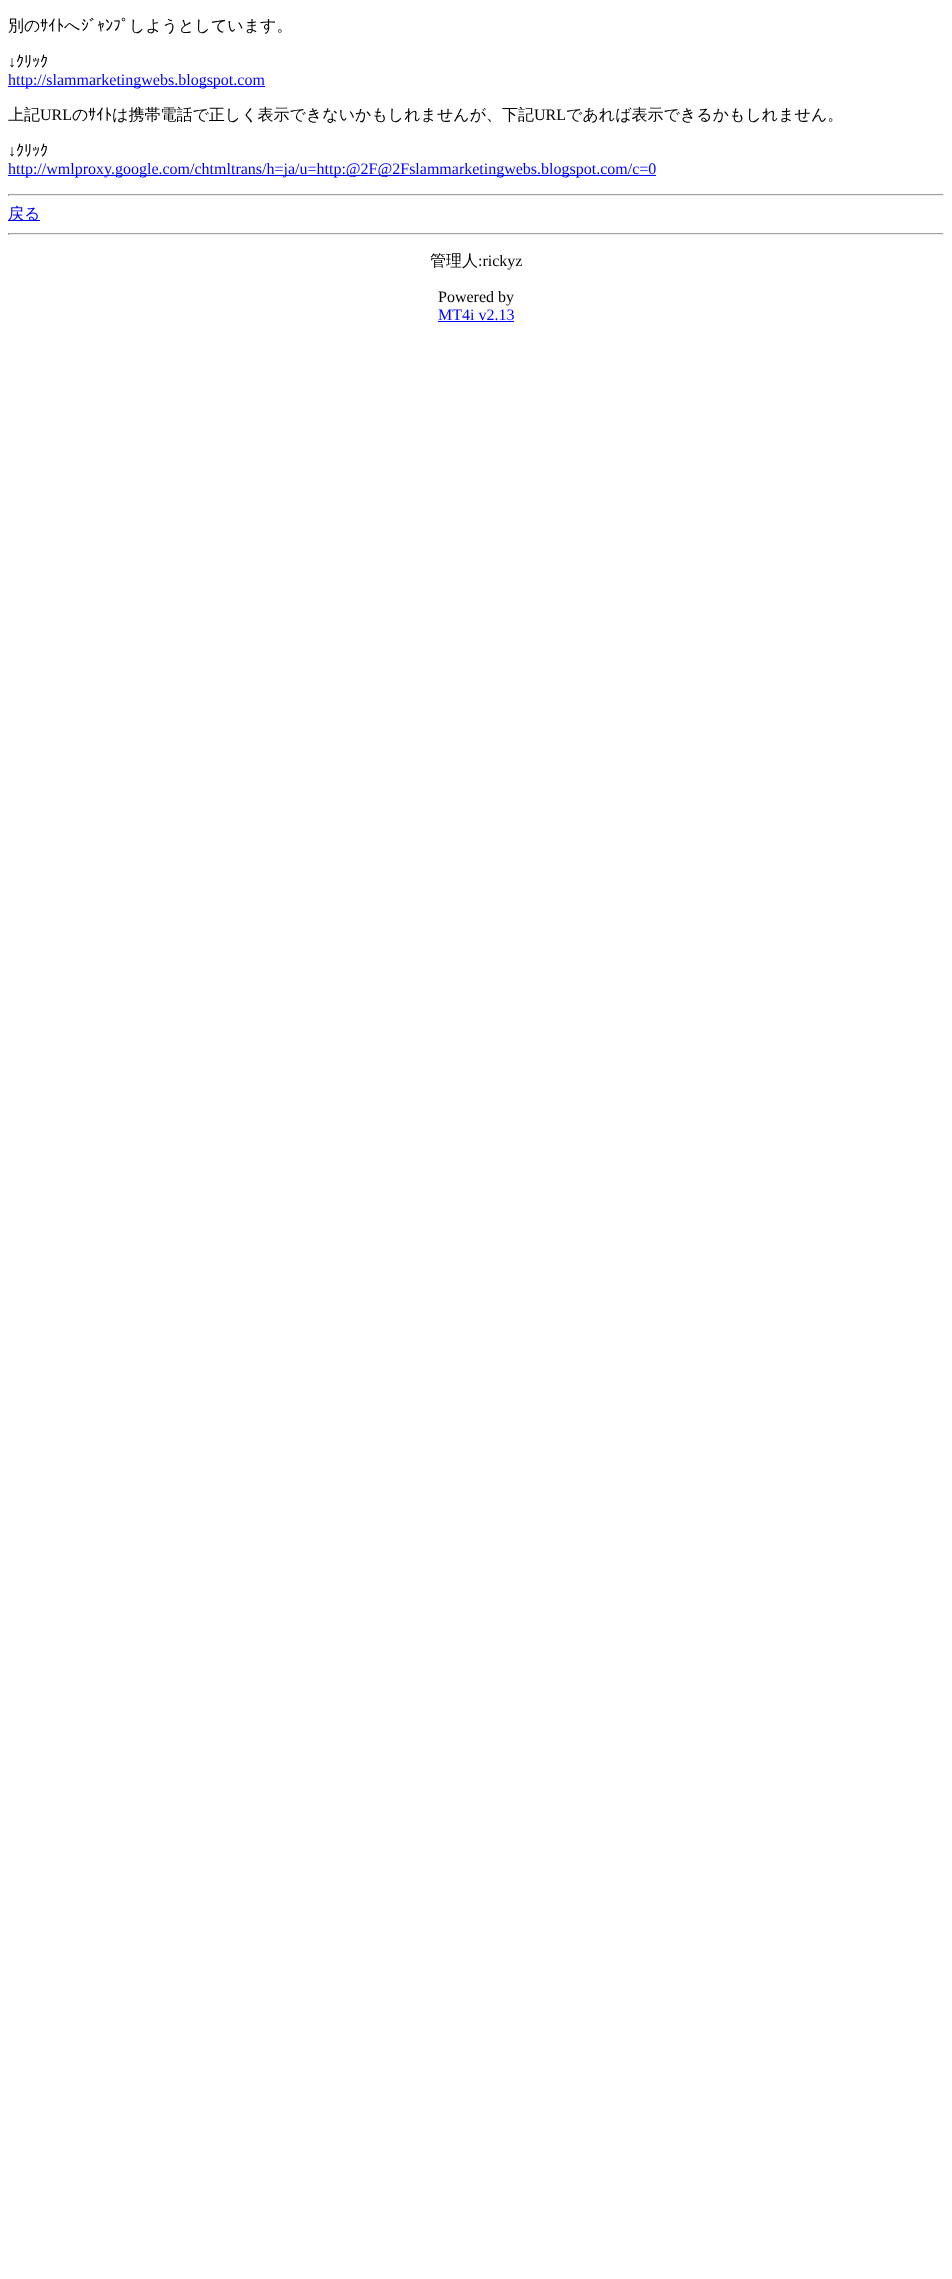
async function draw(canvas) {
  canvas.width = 952;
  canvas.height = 2279;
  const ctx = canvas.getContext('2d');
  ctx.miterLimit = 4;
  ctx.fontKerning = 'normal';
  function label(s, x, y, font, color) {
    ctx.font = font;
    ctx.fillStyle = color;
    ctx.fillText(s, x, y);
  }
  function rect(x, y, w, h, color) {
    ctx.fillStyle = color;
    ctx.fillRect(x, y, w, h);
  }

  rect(0, 0, 952, 2279, '#fff');
  label('別の', 8, 31, '500 16px WenQuanYi Zen Hei', '#000');
  label('ｻｲﾄ', 40, 31, '16px IPAGothic', '#000');
  label('へ', 64, 31, '500 16px WenQuanYi Zen Hei', '#000');
  label('ｼﾞｬﾝﾌﾟ', 81, 31, '16px IPAGothic', '#000');
  label('しようとしています。', 129, 31, '500 16px WenQuanYi Zen Hei', '#000');
  label('↓', 8, 67, '16px Liberation Serif', '#000');
  label('ｸﾘｯｸ', 16, 67, '16px IPAGothic', '#000');
  rect(8, 86, 257, 1, '#00f');
  label('http://slammarketingwebs.blogspot.com', 8, 85, '16px Liberation Serif', '#00f');
  label('上記', 8, 120, '500 16px WenQuanYi Zen Hei', '#000');
  label('URL', 40, 120, '16px Liberation Serif', '#000');
  label('の', 72, 120, '500 16px WenQuanYi Zen Hei', '#000');
  label('ｻｲﾄ', 88, 120, '16px IPAGothic', '#000');
  label('は携帯電話で正しく表示できないかもしれませんが、下記', 112, 120, '500 16px WenQuanYi Zen Hei', '#000');
  label('URL', 534, 120, '16px Liberation Serif', '#000');
  label('であれば表示できるかもしれません。', 566, 120, '500 16px WenQuanYi Zen Hei', '#000');
  label('↓', 8, 156, '16px Liberation Serif', '#000');
  label('ｸﾘｯｸ', 16, 156, '16px IPAGothic', '#000');
  rect(8, 175, 648, 1, '#00f');
  label('http://wmlproxy.google.com/chtmltrans/h=ja/u=http:@2F@2Fslammarketingwebs.blogspot.com/c=0', 8, 174, '16px Liberation Serif', '#00f');
  rect(8, 194, 936, 1, '#9f9f9f');
  rect(943, 194, 1, 2, '#eee');
  rect(8, 195, 936, 1, '#eee');
  rect(8, 194, 1, 2, '#9f9f9f');
  rect(8, 220, 32, 1, '#00f');
  label('戻る', 8, 219, '500 16px WenQuanYi Zen Hei', '#00f');
  rect(8, 233, 936, 1, '#9f9f9f');
  rect(943, 233, 1, 2, '#eee');
  rect(8, 234, 936, 1, '#eee');
  rect(8, 233, 1, 2, '#9f9f9f');
  label('管理人', 430, 266, '500 16px WenQuanYi Zen Hei', '#000');
  label(':rickyz', 478, 266, '16px Liberation Serif', '#000');
  label('Powered by', 438, 302, '16px Liberation Serif', '#000');
  label('MT4i v2.13', 438, 320, '16px Liberation Serif', '#00f');
  rect(438, 321, 76, 1, '#00f');
}

draw(document.querySelector('canvas'));
